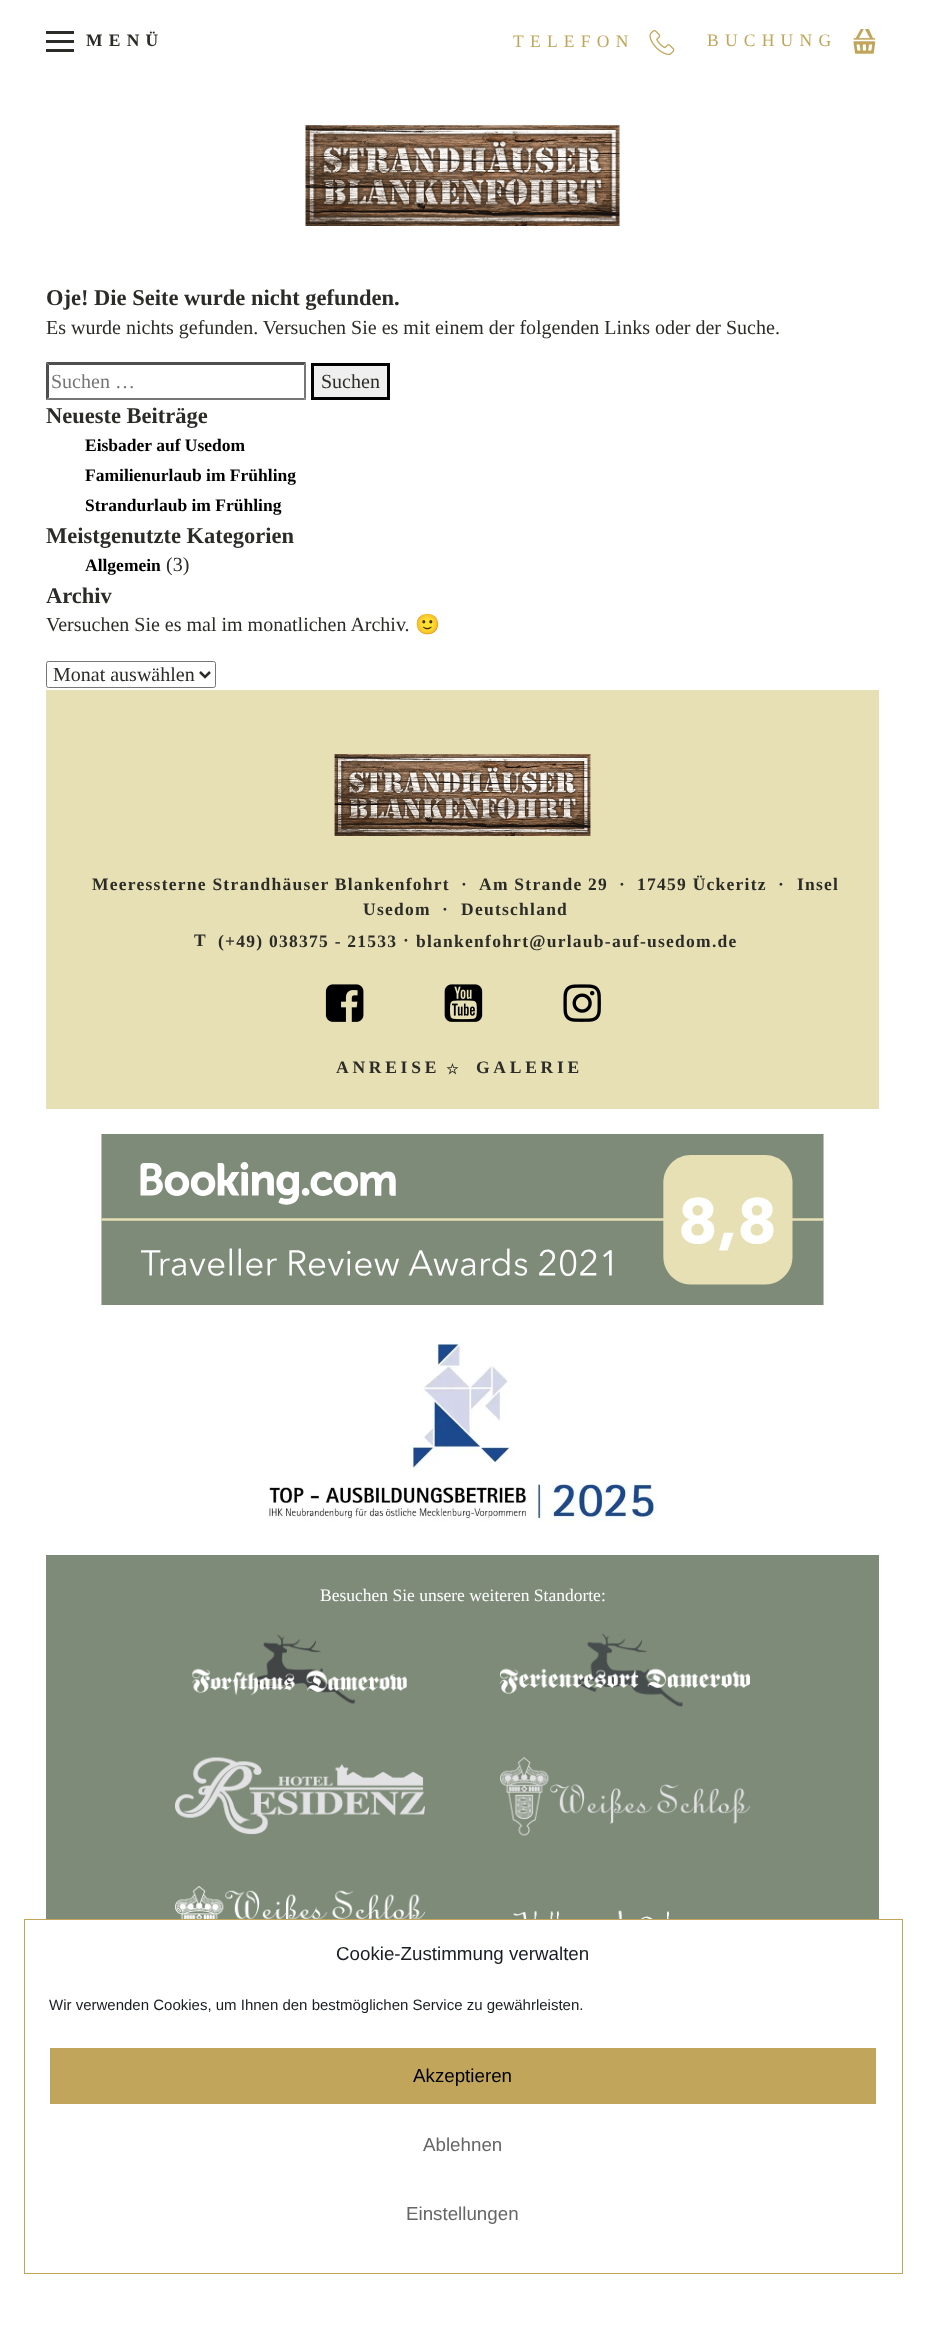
async function draw(canvas) {
  canvas.width = 925;
  canvas.height = 2332;
  const ctx = canvas.getContext('2d');
  ctx.miterLimit = 4;
  ctx.fontKerning = 'normal';
  function label(s, x, y, font, color) {
    ctx.font = font;
    ctx.fillStyle = color;
    ctx.fillText(s, x, y);
  }
  function rect(x, y, w, h, color) {
    ctx.fillStyle = color;
    ctx.fillRect(x, y, w, h);
  }
  async function image(src, x, y, w, h) {
    const img = new Image();
    img.src = src;
    await img.decode();
    ctx.drawImage(img, x, y, w, h);
  }
  let path;

  rect(0, 0, 925, 2332, '#fff');
  rect(46, 31, 28, 3, '#2b2c28');
  rect(46, 40, 28, 3, '#2b2c28');
  rect(46, 49, 28, 3, '#2b2c28');
  ctx.letterSpacing = '6.25px';
  label('MENÜ', 86, 46, 'bold 17.5px Liberation Serif', '#2b2c27');
  label('TELEFON', 513, 47, '17.5px Liberation Serif', '#c0a55a');
  await image('assets/img1.png', 649, 30, 26, 25);
  label('BUCHUNG', 707, 46, '17.5px Liberation Serif', '#c0a55a');
  await image('assets/img2.png', 853, 29, 23, 25);
  await image('assets/img3.png', 305, 125, 315, 101);
  ctx.letterSpacing = '0px';
  label('Oje! Die Seite wurde nicht gefunden.', 46, 305, 'bold 22.5px Liberation Serif', '#2b2c27');
  label('Es wurde nichts gefunden. Versuchen Sie es mit einem der folgenden Links oder der Suche.', 46, 334, '20px Liberation Serif', '#2b2c27');
  ctx.fillStyle = '#4f4f4f';
  path = new Path2D('M46 362H306L304 365H49Z');
  ctx.fill(path);
  ctx.fillStyle = '#767676';
  path = new Path2D('M306 362.5V400L304 397.5V365Z');
  ctx.fill(path);
  path = new Path2D('M306 400H46L49 398H304Z');
  ctx.fill(path);
  ctx.fillStyle = '#4f4f4f';
  path = new Path2D('M46 400V362.5L49 365V397.5Z');
  ctx.fill(path);
  label('Suchen …', 51, 388, '20px Liberation Serif', '#757575');
  ctx.fillStyle = '#efefef';
  ctx.beginPath();
  ctx.rect(312.5, 364.5, 76, 34);
  ctx.fill();
  ctx.strokeStyle = '#000';
  ctx.lineWidth = 3;
  ctx.stroke();
  label('Suchen', 321, 388, '20px Liberation Serif', '#2b2c27');
  label('Neueste Beiträge', 46, 423, 'bold 22.5px Liberation Serif', '#2b2c27');
  label('Eisbader auf Usedom', 85, 451, 'bold 17.5px Liberation Serif', '#000');
  label('Familienurlaub im Frühling', 85, 481, 'bold 17.5px Liberation Serif', '#000');
  label('Strandurlaub im Frühling', 85, 511, 'bold 17.5px Liberation Serif', '#000');
  label('Meistgenutzte Kategorien', 46, 543, 'bold 22.5px Liberation Serif', '#2b2c27');
  label('Allgemein', 85, 571, 'bold 17.5px Liberation Serif', '#000');
  label('(3)', 166, 571, '20px Liberation Serif', '#2b2c27');
  label('Archiv', 46, 603, 'bold 22.5px Liberation Serif', '#2b2c27');
  label('Versuchen Sie es mal im monatlichen Archiv.', 46, 631, '20px Liberation Serif', '#2b2c27');
  label('🙂', 415, 631, '20px Noto Color Emoji', '#2b2c27');
  ctx.beginPath();
  ctx.roundRect(46.5, 661.5, 169, 26, 2);
  ctx.strokeStyle = '#767676';
  ctx.lineWidth = 1;
  ctx.stroke();
  path = new Path2D('M200 672L205 677L210 672');
  ctx.strokeStyle = '#2b2c27';
  ctx.lineWidth = 2.5;
  ctx.stroke(path);
  label('Monat auswählen', 53, 681, '20px Liberation Serif', '#2b2c27');
  rect(46, 690, 833, 419, '#e7e0b5');
  await image('assets/img4.png', 334, 754, 257, 82);
  ctx.letterSpacing = '1.25px';
  label('Meeressterne Strandhäuser Blankenfohrt', 92, 890, 'bold 17.5px Liberation Serif', '#2b2c27');
  label('·', 461, 890, 'bold 17.5px Liberation Serif', '#2b2c27');
  label('Am Strande 29', 479, 890, 'bold 17.5px Liberation Serif', '#2b2c27');
  label('·', 619, 890, 'bold 17.5px Liberation Serif', '#2b2c27');
  label('17459 Ückeritz', 637, 890, 'bold 17.5px Liberation Serif', '#2b2c27');
  label('·', 778, 890, 'bold 17.5px Liberation Serif', '#2b2c27');
  label('Insel', 797, 890, 'bold 17.5px Liberation Serif', '#2b2c27');
  label('Usedom', 363, 915, 'bold 17.5px Liberation Serif', '#2b2c27');
  label('·', 442, 915, 'bold 17.5px Liberation Serif', '#2b2c27');
  label('Deutschland', 461, 915, 'bold 17.5px Liberation Serif', '#2b2c27');
  label('T', 194, 946, 'bold 17.5px Liberation Serif', '#2b2c27');
  label('(+49) 038375 - 21533', 218, 947, 'bold 17.5px Liberation Serif', '#2b2c27');
  label('·', 403, 946, 'bold 17.5px Liberation Serif', '#2b2c27');
  label('blankenfohrt@urlaub-auf-usedom.de', 416, 947, 'bold 17.5px Liberation Serif', '#2b2c27');
  await image('assets/img5.png', 325, 984, 39, 38);
  await image('assets/img6.png', 444, 984, 39, 38);
  await image('assets/img7.png', 563, 984, 38, 38);
  ctx.letterSpacing = '3.75px';
  label('ANREISE', 336, 1073, 'bold 17.5px Liberation Serif', '#2b2c27');
  label('☆', 446, 1074, 'bold 14px DejaVu Sans', '#2b2c27');
  label('GALERIE', 476, 1073, 'bold 17.5px Liberation Serif', '#2b2c27');
  await image('assets/img8.png', 101, 1134, 723, 171);
  await image('assets/img9.png', 269, 1343, 388, 181);
  rect(46, 1555, 833, 364, '#7e8b78');
  ctx.letterSpacing = '0px';
  label('Besuchen Sie unsere weiteren Standorte:', 320, 1601, '17.5px Liberation Serif', '#fff');
  await image('assets/img10.png', 192, 1634, 215, 70);
  await image('assets/img11.png', 500, 1633, 250, 74);
  await image('assets/img12.png', 175, 1757, 250, 78);
  await image('assets/img13.png', 500, 1757, 250, 79);
  await image('assets/img14.png', 175, 1886, 250, 33);
  await image('assets/img15.png', 513, 1910, 157, 9);
  ctx.strokeStyle = '#c0a55a';
  ctx.lineWidth = 1;
  ctx.strokeRect(24.5, 1919.5, 878, 354);
  label('Cookie-Zustimmung verwalten', 336, 1960, '18.75px Liberation Sans', '#191e23');
  label('Wir verwenden Cookies, um Ihnen den bestmöglichen Service zu gewährleisten.', 49, 2010, '15px Liberation Sans', '#191e23');
  rect(50, 2048, 826, 56, '#c0a55a');
  label('Akzeptieren', 413, 2082, '18.75px Liberation Sans', '#000');
  label('Ablehnen', 423, 2151, '18.75px Liberation Sans', '#666');
  label('Einstellungen', 406, 2220, '18.75px Liberation Sans', '#666');
}

draw(document.querySelector('canvas'));
